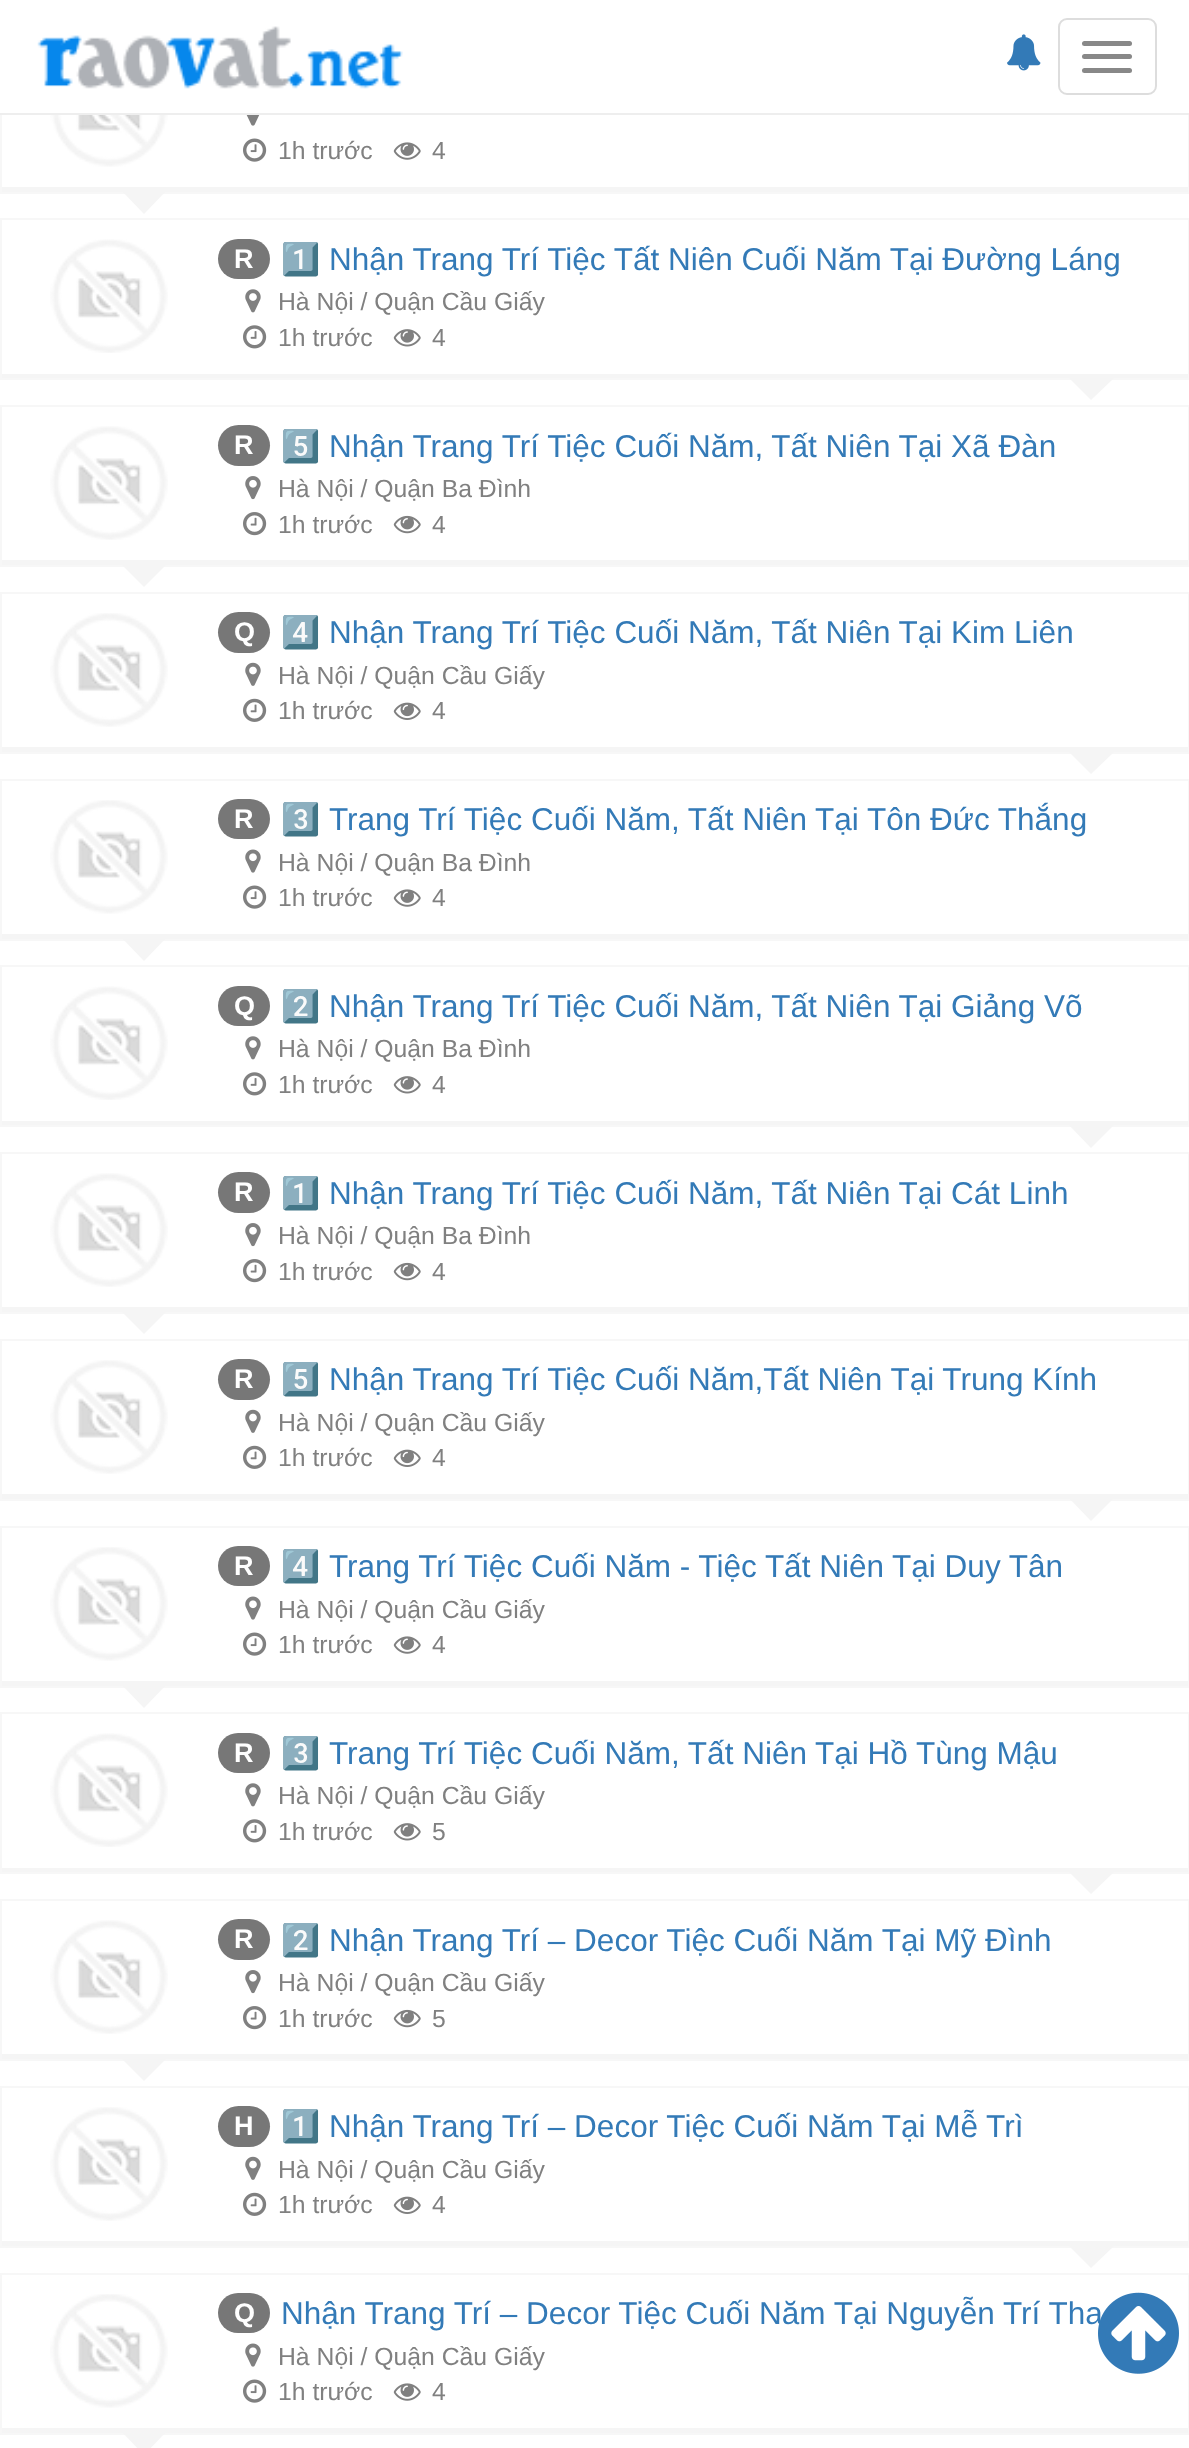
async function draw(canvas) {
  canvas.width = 1189;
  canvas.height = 2448;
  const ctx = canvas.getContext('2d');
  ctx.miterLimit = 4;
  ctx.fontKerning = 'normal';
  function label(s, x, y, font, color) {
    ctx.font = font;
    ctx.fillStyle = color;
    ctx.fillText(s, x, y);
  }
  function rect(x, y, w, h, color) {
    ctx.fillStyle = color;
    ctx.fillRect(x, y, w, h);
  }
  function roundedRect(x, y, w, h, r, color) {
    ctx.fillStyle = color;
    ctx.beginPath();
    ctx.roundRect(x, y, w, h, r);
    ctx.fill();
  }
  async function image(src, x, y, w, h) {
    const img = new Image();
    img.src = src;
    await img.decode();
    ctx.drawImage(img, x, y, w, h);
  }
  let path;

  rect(0, 0, 1189, 2448, '#fff');
  ctx.strokeStyle = '#f7f7f7';
  ctx.lineWidth = 2;
  ctx.strokeRect(1, 33, 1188, 160);
  rect(0, 32, 1189, 81, '#fff');
  rect(0, 113, 1189, 2, '#eee');
  await image('assets/img1.png', 37, 26, 366, 63);
  await image('assets/img2.png', 1007, 34, 34, 37);
  ctx.beginPath();
  ctx.roundRect(1059, 19, 97, 75, 8);
  ctx.strokeStyle = '#ddd';
  ctx.stroke();
  roundedRect(1082, 41, 50, 5, 2.5, '#888');
  roundedRect(1082, 54, 50, 5, 2.5, '#888');
  roundedRect(1082, 68, 50, 5, 2.5, '#888');
  ctx.fillStyle = '#f5f5f5';
  path = new Path2D('M122 191H166L144 214Z');
  ctx.fill(path);
  rect(2, 187, 1186, 5, '#f5f5f5');
  await image('assets/img3.png', 50, 115, 118, 52);
  await image('assets/img4.png', 246, 115, 14, 11);
  await image('assets/img5.png', 243, 138, 24, 24);
  label('1h trước', 278, 159, '24.75px Liberation Sans', '#808080');
  await image('assets/img6.png', 393, 142, 28, 18);
  label('4', 432, 159, '24.75px Liberation Sans', '#808080');
  ctx.strokeStyle = '#f7f7f7';
  ctx.strokeRect(1, 219, 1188, 160);
  rect(2, 374, 1186, 4, '#f5f5f5');
  await image('assets/img7.png', 50, 239, 118, 114);
  roundedRect(218, 239, 52, 40, 20, '#777');
  label('R', 234, 268, 'bold 27px Liberation Sans', '#fff');
  label('1️⃣', 281, 270, '31.5px Noto Color Emoji', '#337ab7');
  label('Nhận Trang Trí Tiệc Tất Niên Cuối Năm Tại Đường Láng', 329, 270, '31.5px Liberation Sans', '#337ab7');
  await image('assets/img8.png', 245, 289, 16, 24);
  label('Hà Nội / Quận Cầu Giấy', 278, 310, '24.75px Liberation Sans', '#808080');
  await image('assets/img9.png', 243, 325, 24, 24);
  label('1h trước', 278, 346, '24.75px Liberation Sans', '#808080');
  await image('assets/img10.png', 393, 329, 28, 18);
  label('4', 432, 346, '24.75px Liberation Sans', '#808080');
  ctx.fillStyle = '#f5f5f5';
  path = new Path2D('M1069 378H1114L1091 400Z');
  ctx.fill(path);
  ctx.strokeRect(1, 406, 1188, 160);
  rect(2, 560, 1186, 5, '#f5f5f5');
  await image('assets/img11.png', 50, 426, 118, 114);
  roundedRect(218, 425, 52, 41, 20.5, '#777');
  label('R', 234, 454, 'bold 27px Liberation Sans', '#fff');
  label('5️⃣', 281, 457, '31.5px Noto Color Emoji', '#337ab7');
  label('Nhận Trang Trí Tiệc Cuối Năm, Tất Niên Tại Xã Đàn', 329, 457, '31.5px Liberation Sans', '#337ab7');
  await image('assets/img12.png', 245, 476, 16, 24);
  label('Hà Nội / Quận Ba Đình', 278, 497, '24.75px Liberation Sans', '#808080');
  await image('assets/img13.png', 243, 512, 24, 24);
  label('1h trước', 278, 533, '24.75px Liberation Sans', '#808080');
  await image('assets/img14.png', 393, 515, 28, 19);
  label('4', 432, 533, '24.75px Liberation Sans', '#808080');
  ctx.fillStyle = '#f5f5f5';
  path = new Path2D('M122 565H166L144 587Z');
  ctx.fill(path);
  ctx.strokeRect(1, 593, 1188, 160);
  rect(2, 747, 1186, 5, '#f5f5f5');
  await image('assets/img15.png', 50, 613, 118, 114);
  roundedRect(218, 612, 52, 41, 20.5, '#777');
  label('Q', 234, 641, 'bold 27px Liberation Sans', '#fff');
  label('4️⃣', 281, 643, '31.5px Noto Color Emoji', '#337ab7');
  label('Nhận Trang Trí Tiệc Cuối Năm, Tất Niên Tại Kim Liên', 329, 643, '31.5px Liberation Sans', '#337ab7');
  await image('assets/img16.png', 245, 662, 16, 24);
  label('Hà Nội / Quận Cầu Giấy', 278, 684, '24.75px Liberation Sans', '#808080');
  await image('assets/img17.png', 243, 698, 24, 24);
  label('1h trước', 278, 719, '24.75px Liberation Sans', '#808080');
  await image('assets/img18.png', 393, 702, 28, 18);
  label('4', 432, 719, '24.75px Liberation Sans', '#808080');
  ctx.fillStyle = '#f5f5f5';
  path = new Path2D('M1069 752H1114L1091 774Z');
  ctx.fill(path);
  ctx.strokeRect(1, 780, 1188, 160);
  path = new Path2D('M122 938H166L144 961Z');
  ctx.fill(path);
  rect(2, 934, 1186, 5, '#f5f5f5');
  await image('assets/img19.png', 50, 800, 118, 114);
  roundedRect(218, 799, 52, 40, 20, '#777');
  label('R', 234, 828, 'bold 27px Liberation Sans', '#fff');
  label('3️⃣', 281, 830, '31.5px Noto Color Emoji', '#337ab7');
  label('Trang Trí Tiệc Cuối Năm, Tất Niên Tại Tôn Đức Thắng', 329, 830, '31.5px Liberation Sans', '#337ab7');
  await image('assets/img20.png', 245, 849, 16, 24);
  label('Hà Nội / Quận Ba Đình', 278, 871, '24.75px Liberation Sans', '#808080');
  await image('assets/img5.png', 243, 885, 24, 24);
  label('1h trước', 278, 906, '24.75px Liberation Sans', '#808080');
  await image('assets/img6.png', 393, 889, 28, 18);
  label('4', 432, 906, '24.75px Liberation Sans', '#808080');
  ctx.strokeRect(1, 966, 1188, 160);
  rect(2, 1121, 1186, 4, '#f5f5f5');
  await image('assets/img7.png', 50, 986, 118, 114);
  roundedRect(218, 986, 52, 40, 20, '#777');
  label('Q', 234, 1015, 'bold 27px Liberation Sans', '#fff');
  label('2️⃣', 281, 1017, '31.5px Noto Color Emoji', '#337ab7');
  label('Nhận Trang Trí Tiệc Cuối Năm, Tất Niên Tại Giảng Võ', 329, 1017, '31.5px Liberation Sans', '#337ab7');
  await image('assets/img8.png', 245, 1036, 16, 24);
  label('Hà Nội / Quận Ba Đình', 278, 1057, '24.75px Liberation Sans', '#808080');
  await image('assets/img9.png', 243, 1072, 24, 24);
  label('1h trước', 278, 1093, '24.75px Liberation Sans', '#808080');
  await image('assets/img10.png', 393, 1076, 28, 18);
  label('4', 432, 1093, '24.75px Liberation Sans', '#808080');
  ctx.fillStyle = '#f5f5f5';
  path = new Path2D('M1069 1125H1114L1091 1148Z');
  ctx.fill(path);
  ctx.strokeRect(1, 1153, 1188, 160);
  rect(2, 1307, 1186, 5, '#f5f5f5');
  await image('assets/img11.png', 50, 1173, 118, 114);
  roundedRect(218, 1172, 52, 41, 20.5, '#777');
  label('R', 234, 1201, 'bold 27px Liberation Sans', '#fff');
  label('1️⃣', 281, 1204, '31.5px Noto Color Emoji', '#337ab7');
  label('Nhận Trang Trí Tiệc Cuối Năm, Tất Niên Tại Cát Linh', 329, 1204, '31.5px Liberation Sans', '#337ab7');
  await image('assets/img12.png', 245, 1223, 16, 24);
  label('Hà Nội / Quận Ba Đình', 278, 1244, '24.75px Liberation Sans', '#808080');
  await image('assets/img13.png', 243, 1259, 24, 24);
  label('1h trước', 278, 1280, '24.75px Liberation Sans', '#808080');
  await image('assets/img14.png', 393, 1262, 28, 19);
  label('4', 432, 1280, '24.75px Liberation Sans', '#808080');
  ctx.fillStyle = '#f5f5f5';
  path = new Path2D('M122 1312H166L144 1334Z');
  ctx.fill(path);
  ctx.strokeRect(1, 1340, 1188, 160);
  path = new Path2D('M1069 1498H1114L1091 1521Z');
  ctx.fill(path);
  rect(2, 1494, 1186, 5, '#f5f5f5');
  await image('assets/img15.png', 50, 1360, 118, 114);
  roundedRect(218, 1359, 52, 41, 20.5, '#777');
  label('R', 234, 1388, 'bold 27px Liberation Sans', '#fff');
  label('5️⃣', 281, 1390, '31.5px Noto Color Emoji', '#337ab7');
  label('Nhận Trang Trí Tiệc Cuối Năm,Tất Niên Tại Trung Kính', 329, 1390, '31.5px Liberation Sans', '#337ab7');
  await image('assets/img16.png', 245, 1409, 16, 24);
  label('Hà Nội / Quận Cầu Giấy', 278, 1431, '24.75px Liberation Sans', '#808080');
  await image('assets/img17.png', 243, 1445, 24, 24);
  label('1h trước', 278, 1466, '24.75px Liberation Sans', '#808080');
  await image('assets/img18.png', 393, 1449, 28, 18);
  label('4', 432, 1466, '24.75px Liberation Sans', '#808080');
  ctx.strokeRect(1, 1527, 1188, 160);
  ctx.fillStyle = '#f5f5f5';
  path = new Path2D('M122 1685H166L144 1708Z');
  ctx.fill(path);
  rect(2, 1681, 1186, 5, '#f5f5f5');
  await image('assets/img19.png', 50, 1547, 118, 114);
  roundedRect(218, 1546, 52, 40, 20, '#777');
  label('R', 234, 1575, 'bold 27px Liberation Sans', '#fff');
  label('4️⃣', 281, 1577, '31.5px Noto Color Emoji', '#337ab7');
  label('Trang Trí Tiệc Cuối Năm - Tiệc Tất Niên Tại Duy Tân', 329, 1577, '31.5px Liberation Sans', '#337ab7');
  await image('assets/img20.png', 245, 1596, 16, 24);
  label('Hà Nội / Quận Cầu Giấy', 278, 1618, '24.75px Liberation Sans', '#808080');
  await image('assets/img5.png', 243, 1632, 24, 24);
  label('1h trước', 278, 1653, '24.75px Liberation Sans', '#808080');
  await image('assets/img6.png', 393, 1636, 28, 18);
  label('4', 432, 1653, '24.75px Liberation Sans', '#808080');
  ctx.strokeRect(1, 1713, 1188, 160);
  rect(2, 1868, 1186, 4, '#f5f5f5');
  await image('assets/img7.png', 50, 1733, 118, 114);
  roundedRect(218, 1733, 52, 40, 20, '#777');
  label('R', 234, 1762, 'bold 27px Liberation Sans', '#fff');
  label('3️⃣', 281, 1764, '31.5px Noto Color Emoji', '#337ab7');
  label('Trang Trí Tiệc Cuối Năm, Tất Niên Tại Hồ Tùng Mậu', 329, 1764, '31.5px Liberation Sans', '#337ab7');
  await image('assets/img8.png', 245, 1783, 16, 24);
  label('Hà Nội / Quận Cầu Giấy', 278, 1804, '24.75px Liberation Sans', '#808080');
  await image('assets/img9.png', 243, 1819, 24, 24);
  label('1h trước', 278, 1840, '24.75px Liberation Sans', '#808080');
  await image('assets/img10.png', 393, 1823, 28, 18);
  label('5', 432, 1840, '24.75px Liberation Sans', '#808080');
  ctx.fillStyle = '#f5f5f5';
  path = new Path2D('M1069 1872H1114L1091 1894Z');
  ctx.fill(path);
  ctx.strokeRect(1, 1900, 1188, 160);
  rect(2, 2054, 1186, 5, '#f5f5f5');
  await image('assets/img11.png', 50, 1920, 118, 114);
  roundedRect(218, 1919, 52, 41, 20.5, '#777');
  label('R', 234, 1948, 'bold 27px Liberation Sans', '#fff');
  label('2️⃣', 281, 1951, '31.5px Noto Color Emoji', '#337ab7');
  label('Nhận Trang Trí – Decor Tiệc Cuối Năm Tại Mỹ Đình', 329, 1951, '31.5px Liberation Sans', '#337ab7');
  await image('assets/img12.png', 245, 1970, 16, 24);
  label('Hà Nội / Quận Cầu Giấy', 278, 1991, '24.75px Liberation Sans', '#808080');
  await image('assets/img13.png', 243, 2006, 24, 24);
  label('1h trước', 278, 2027, '24.75px Liberation Sans', '#808080');
  await image('assets/img14.png', 393, 2009, 28, 19);
  label('5', 432, 2027, '24.75px Liberation Sans', '#808080');
  ctx.fillStyle = '#f5f5f5';
  path = new Path2D('M122 2059H166L144 2081Z');
  ctx.fill(path);
  ctx.strokeRect(1, 2087, 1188, 160);
  rect(2, 2241, 1186, 5, '#f5f5f5');
  await image('assets/img15.png', 50, 2107, 118, 114);
  roundedRect(218, 2106, 52, 41, 20.5, '#777');
  label('H', 234, 2135, 'bold 27px Liberation Sans', '#fff');
  label('1️⃣', 281, 2137, '31.5px Noto Color Emoji', '#337ab7');
  label('Nhận Trang Trí – Decor Tiệc Cuối Năm Tại Mễ Trì', 329, 2137, '31.5px Liberation Sans', '#337ab7');
  await image('assets/img16.png', 245, 2156, 16, 24);
  label('Hà Nội / Quận Cầu Giấy', 278, 2178, '24.75px Liberation Sans', '#808080');
  await image('assets/img17.png', 243, 2192, 24, 24);
  label('1h trước', 278, 2213, '24.75px Liberation Sans', '#808080');
  await image('assets/img18.png', 393, 2196, 28, 18);
  label('4', 432, 2213, '24.75px Liberation Sans', '#808080');
  ctx.fillStyle = '#f5f5f5';
  path = new Path2D('M1069 2246H1114L1091 2268Z');
  ctx.fill(path);
  ctx.strokeRect(1, 2274, 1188, 160);
  path = new Path2D('M122 2432H166L144 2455Z');
  ctx.fill(path);
  rect(2, 2428, 1186, 5, '#f5f5f5');
  await image('assets/img19.png', 50, 2294, 118, 114);
  roundedRect(218, 2293, 52, 40, 20, '#777');
  label('Q', 234, 2322, 'bold 27px Liberation Sans', '#fff');
  label('Nhận Trang Trí – Decor Tiệc Cuối Năm Tại Nguyễn Trí Tha', 281, 2324, '31.5px Liberation Sans', '#337ab7');
  await image('assets/img20.png', 245, 2343, 16, 24);
  label('Hà Nội / Quận Cầu Giấy', 278, 2365, '24.75px Liberation Sans', '#808080');
  await image('assets/img5.png', 243, 2379, 24, 24);
  label('1h trước', 278, 2400, '24.75px Liberation Sans', '#808080');
  await image('assets/img6.png', 393, 2383, 28, 18);
  label('4', 432, 2400, '24.75px Liberation Sans', '#808080');
  await image('assets/img21.png', 1098, 2292, 81, 82);
}

draw(document.querySelector('canvas'));
